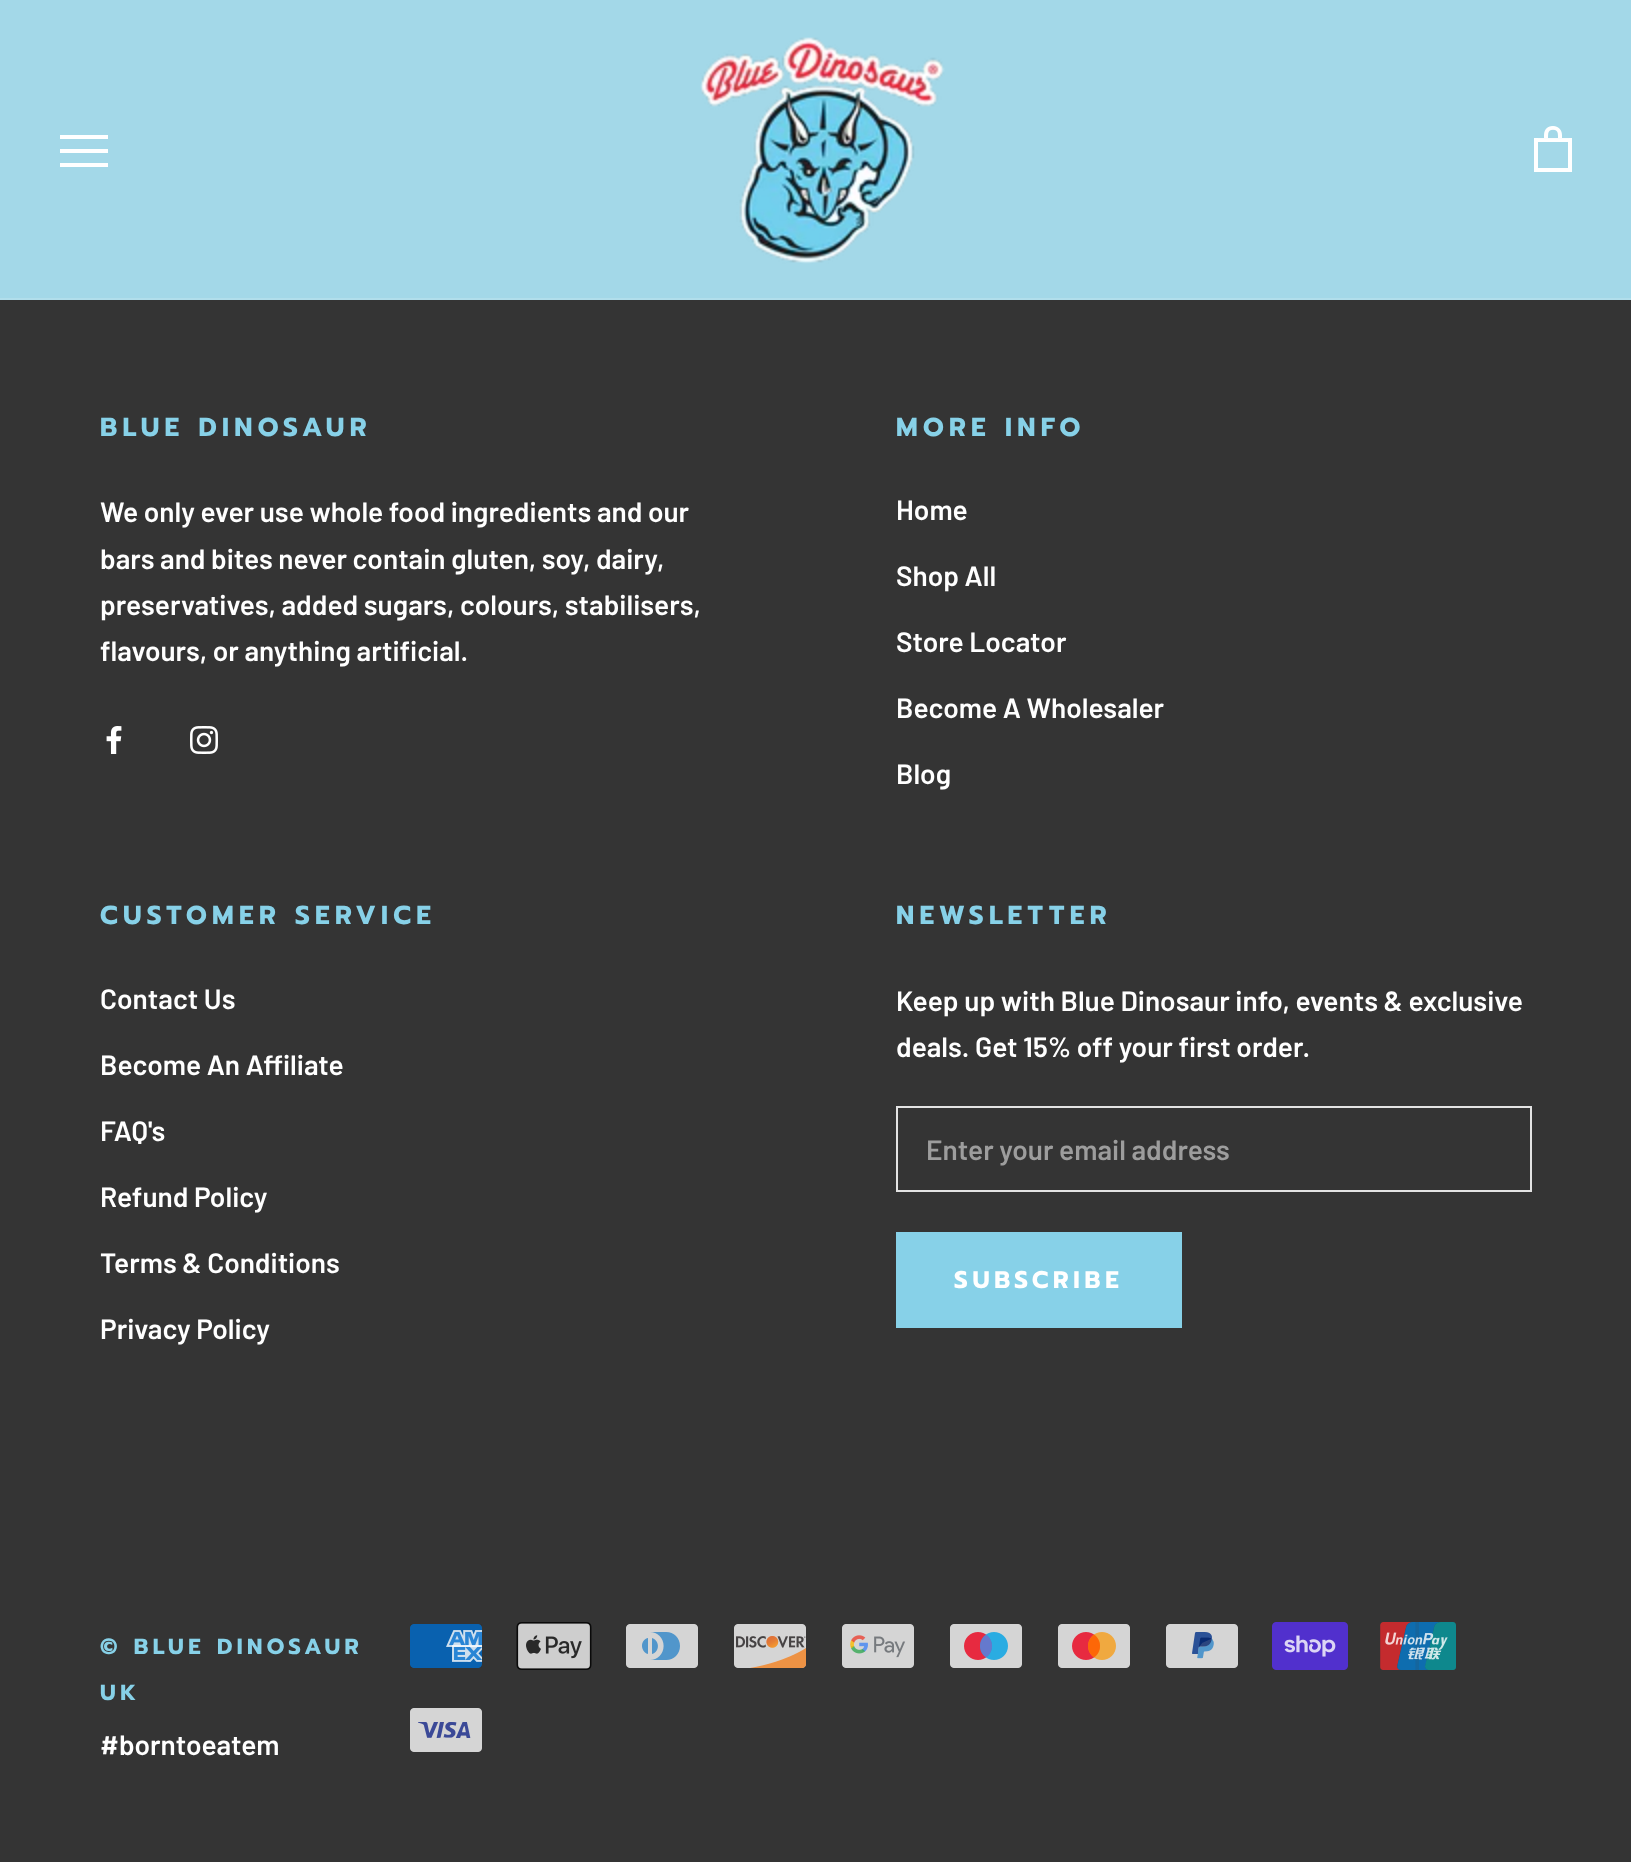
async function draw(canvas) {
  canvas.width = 1631;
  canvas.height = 1862;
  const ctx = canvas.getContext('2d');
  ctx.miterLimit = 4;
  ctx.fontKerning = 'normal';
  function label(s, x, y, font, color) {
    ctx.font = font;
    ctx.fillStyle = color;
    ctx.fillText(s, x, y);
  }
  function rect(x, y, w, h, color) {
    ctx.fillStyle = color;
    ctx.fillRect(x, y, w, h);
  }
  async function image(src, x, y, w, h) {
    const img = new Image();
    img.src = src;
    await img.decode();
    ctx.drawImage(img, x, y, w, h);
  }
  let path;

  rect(0, 0, 1631, 1862, '#343434');
  rect(0, 0, 1631, 298, '#a3d8e8');
  rect(0, 298, 1631, 2, '#b1deeb');
  ctx.fillStyle = '#fff';
  path = new Path2D('M60 167V163H108V167ZM60 149H108V153H60ZM60 135H108V139H60Z');
  ctx.fill(path);
  await image('assets/img1.png', 700, 37, 245, 227);
  await image('assets/img2.png', 1534, 126, 38, 46);
  ctx.letterSpacing = '5.25px';
  label('BLUE DINOSAUR', 100, 436, 'bold 26px Prompt', '#87d1e8');
  ctx.letterSpacing = '0px';
  label('We only ever use whole food ingredients and our', 100, 522, '600 28px Barlow', '#fff');
  label('bars and bites never contain gluten, soy, dairy,', 100, 569, '600 28px Barlow', '#fff');
  label('preservatives, added sugars, colours, stabilisers,', 100, 615, '600 28px Barlow', '#fff');
  label('flavours, or anything artificial.', 100, 661, '600 28px Barlow', '#fff');
  await image('assets/img3.png', 106, 726, 16, 28);
  await image('assets/img4.png', 190, 726, 28, 28);
  ctx.letterSpacing = '5.25px';
  label('MORE INFO', 896, 436, 'bold 26px Prompt', '#87d1e8');
  ctx.letterSpacing = '0px';
  label('Home', 896, 520, '600 28px Barlow', '#fff');
  label('Shop All', 896, 586, '600 28px Barlow', '#fff');
  label('Store Locator', 896, 652, '600 28px Barlow', '#fff');
  label('Become A Wholesaler', 896, 718, '600 28px Barlow', '#fff');
  label('Blog', 896, 784, '600 28px Barlow', '#fff');
  ctx.letterSpacing = '5.25px';
  label('CUSTOMER SERVICE', 100, 924, 'bold 26px Prompt', '#87d1e8');
  ctx.letterSpacing = '0px';
  label('Contact Us', 100, 1009, '600 28px Barlow', '#fff');
  label('Become An Affiliate', 100, 1075, '600 28px Barlow', '#fff');
  label('FAQ\'s', 100, 1141, '600 28px Barlow', '#fff');
  label('Refund Policy', 100, 1207, '600 28px Barlow', '#fff');
  label('Terms & Conditions', 100, 1273, '600 28px Barlow', '#fff');
  label('Privacy Policy', 100, 1339, '600 28px Barlow', '#fff');
  ctx.letterSpacing = '5.25px';
  label('NEWSLETTER', 896, 924, 'bold 26px Prompt', '#87d1e8');
  ctx.letterSpacing = '0px';
  label('Keep up with Blue Dinosaur info, events & exclusive', 896, 1011, '600 28px Barlow', '#fff');
  label('deals. Get 15% off your first order.', 896, 1057, '600 28px Barlow', '#fff');
  ctx.strokeStyle = '#e3e3e3';
  ctx.lineWidth = 2;
  ctx.strokeRect(897, 1107, 634, 84);
  label('Enter your email address', 926, 1160, '600 28px Barlow', '#9d9d9d');
  ctx.strokeStyle = '#87d1e8';
  ctx.strokeRect(897, 1233, 284, 94);
  rect(898, 1234, 282, 92, '#87d1e8');
  ctx.letterSpacing = '4.75px';
  label('SUBSCRIBE', 954, 1288, 'bold 24px Prompt', '#fff');
  ctx.letterSpacing = '4.4px';
  label('© BLUE DINOSAUR', 100, 1654, 'bold 22px Prompt', '#87d1e8');
  label('UK', 100, 1700, 'bold 22px Prompt', '#87d1e8');
  ctx.letterSpacing = '0px';
  label('#borntoeatem', 100, 1755, '600 28px Barlow', '#fff');
  await image('assets/img5.png', 410, 1624, 72, 44);
  await image('assets/img6.png', 516, 1622, 76, 48);
  await image('assets/img7.png', 626, 1624, 72, 44);
  await image('assets/img8.png', 734, 1624, 72, 44);
  await image('assets/img9.png', 842, 1624, 72, 44);
  await image('assets/img10.png', 950, 1624, 72, 44);
  await image('assets/img11.png', 1058, 1624, 72, 44);
  await image('assets/img12.png', 1166, 1624, 72, 44);
  await image('assets/img13.png', 1272, 1622, 76, 48);
  await image('assets/img14.png', 1380, 1622, 76, 48);
  await image('assets/img15.png', 410, 1708, 72, 44);
}

draw(document.querySelector('canvas'));
